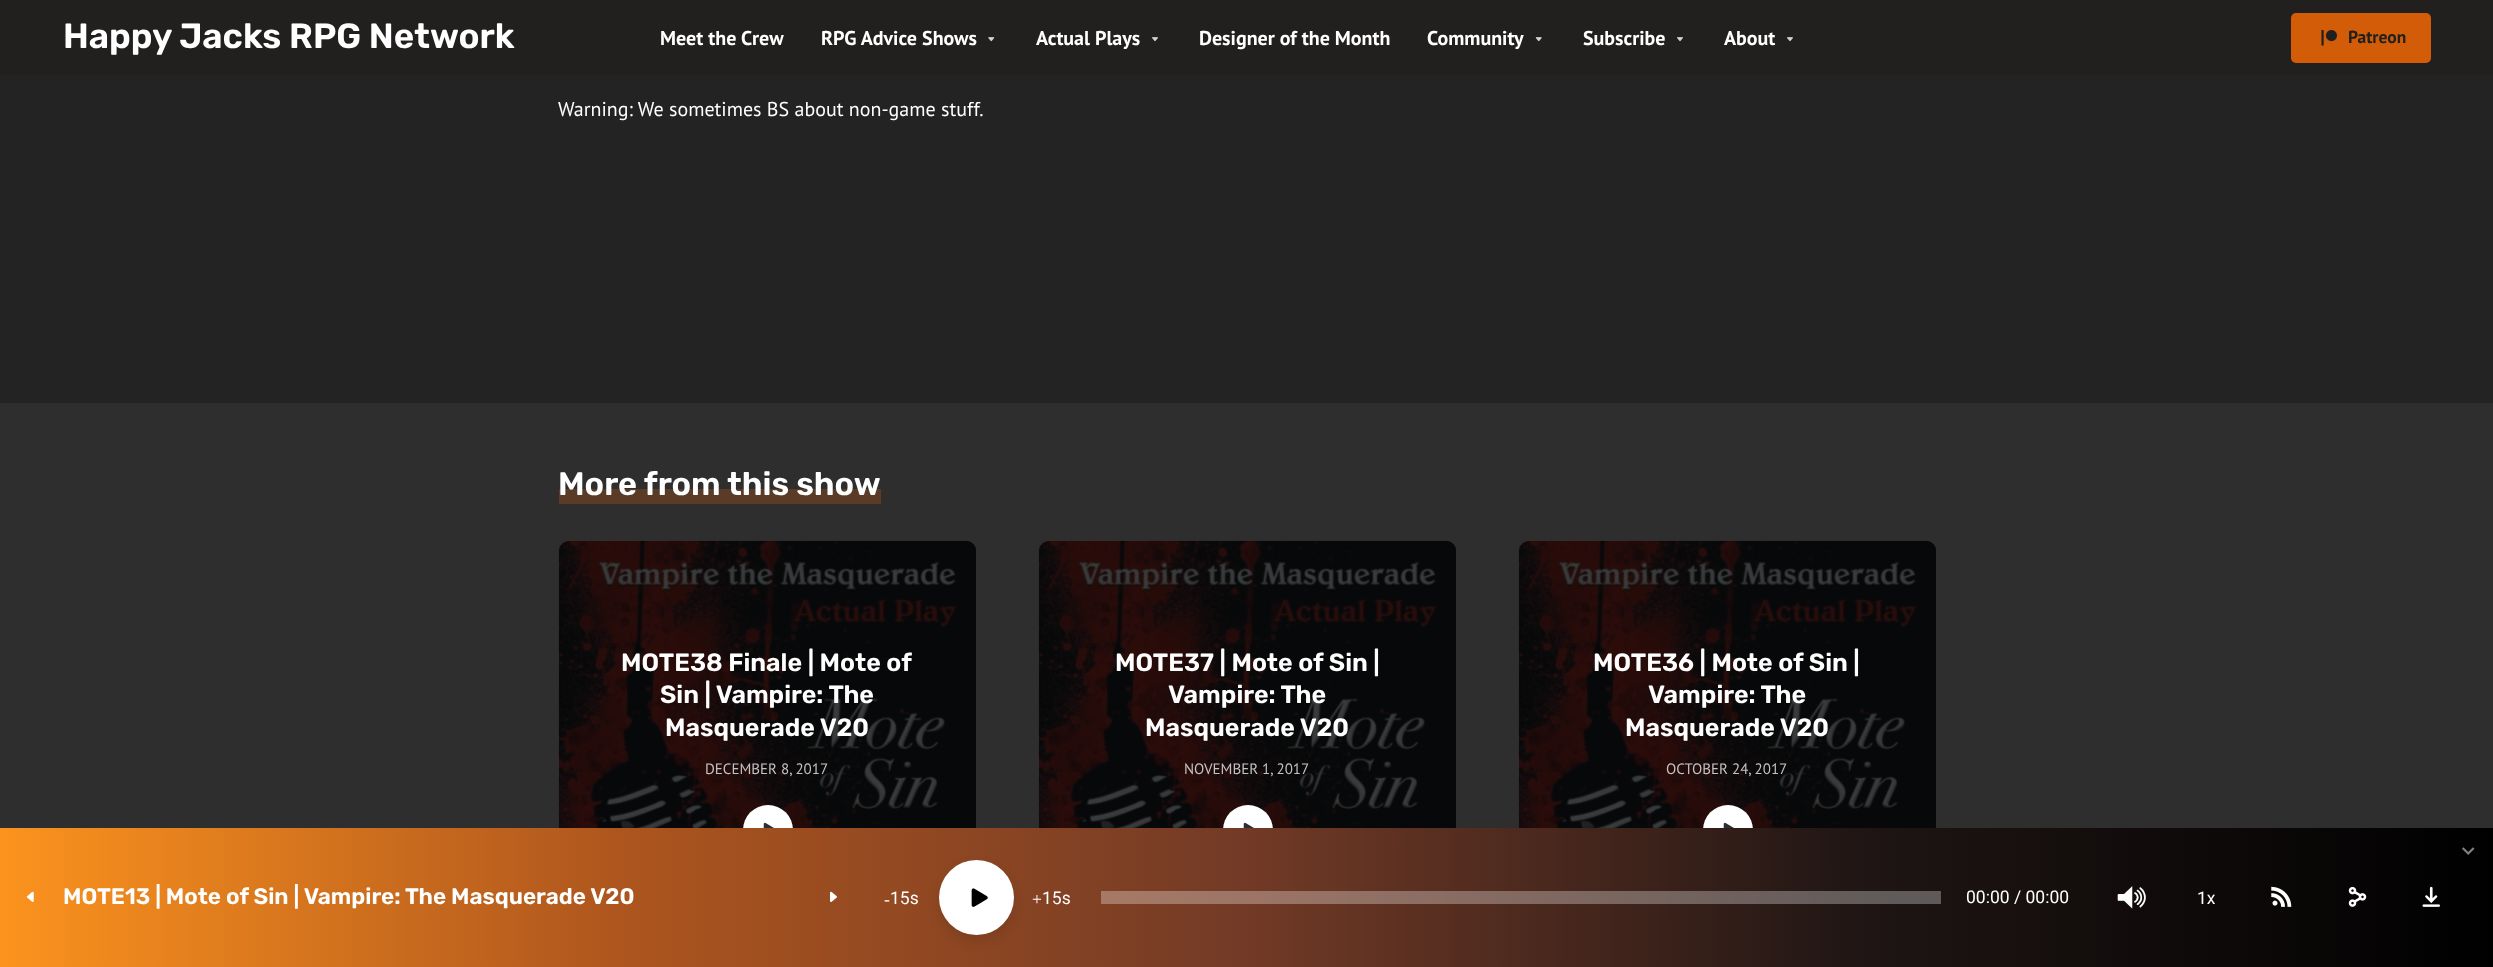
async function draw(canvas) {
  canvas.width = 2493;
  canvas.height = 967;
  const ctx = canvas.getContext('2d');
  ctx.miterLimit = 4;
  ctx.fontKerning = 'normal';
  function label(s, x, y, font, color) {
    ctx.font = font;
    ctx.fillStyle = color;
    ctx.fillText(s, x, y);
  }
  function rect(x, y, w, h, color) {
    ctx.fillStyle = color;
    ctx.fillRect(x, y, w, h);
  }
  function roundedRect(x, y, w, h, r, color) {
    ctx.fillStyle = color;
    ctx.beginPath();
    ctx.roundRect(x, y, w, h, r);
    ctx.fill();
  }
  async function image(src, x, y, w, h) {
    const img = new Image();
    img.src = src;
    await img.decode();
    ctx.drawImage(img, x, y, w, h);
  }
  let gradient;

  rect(0, 0, 2493, 967, '#242323');
  rect(0, 403, 2493, 425, '#2f2e2e');
  rect(0, 0, 2493, 75, '#22201e');
  label('Happy Jacks RPG Network', 63, 48, '600 35px Rubik', '#fff');
  label('Meet the Crew', 660, 45, 'bold 20px PT Sans', '#fff');
  label('RPG Advice Shows', 821, 45, 'bold 20px PT Sans', '#fff');
  await image('assets/img1.png', 988, 37, 7, 5);
  label('Actual Plays', 1036, 45, 'bold 20px PT Sans', '#fff');
  await image('assets/img2.png', 1152, 37, 6, 5);
  label('Designer of the Month', 1199, 45, 'bold 20px PT Sans', '#fff');
  label('Community', 1427, 45, 'bold 20px PT Sans', '#fff');
  await image('assets/img3.png', 1535, 37, 7, 5);
  label('Subscribe', 1583, 45, 'bold 20px PT Sans', '#fff');
  await image('assets/img2.png', 1677, 37, 6, 5);
  label('About', 1724, 45, 'bold 20px PT Sans', '#fff');
  await image('assets/img2.png', 1787, 37, 6, 5);
  roundedRect(2291, 13, 140, 50, 5, '#d25c07');
  await image('assets/img4.png', 2321, 30, 16, 16);
  label('Patreon', 2348, 43, 'bold 17.5px PT Sans', '#22201e');
  label('Warning: We sometimes BS about non-game stuff.', 558, 116, '20px PT Sans', '#fff');
  rect(559, 489, 322, 15, '#593b27');
  label('More from this show', 558, 495, '600 32.5px Rubik', '#fff');
  await image('assets/img5.png', 558, 540, 418, 288);
  roundedRect(559, 541, 417, 418, 10, '#080a0bcc');
  label('MOTE38 Finale | Mote of', 621, 671, '600 25px Rubik', '#fff');
  label('Sin | Vampire: The', 660, 703, '600 25px Rubik', '#fff');
  label('Masquerade V20', 665, 736, '600 25px Rubik', '#fff');
  label('DECEMBER 8, 2017', 705, 774, '15px PT Sans', '#c5c2c2');
  ctx.fillStyle = '#fff';
  ctx.beginPath();
  ctx.arc(768, 830, 25, 0, 2 * Math.PI);
  ctx.fill();
  await image('assets/img6.png', 763, 822, 11, 6);
  await image('assets/img7.png', 1038, 540, 418, 288);
  roundedRect(1039, 541, 417, 418, 10, '#080a0bcc');
  label('MOTE37 | Mote of Sin |', 1115, 671, '600 25px Rubik', '#fff');
  label('Vampire: The', 1168, 703, '600 25px Rubik', '#fff');
  label('Masquerade V20', 1145, 736, '600 25px Rubik', '#fff');
  label('NOVEMBER 1, 2017', 1184, 774, '15px PT Sans', '#c5c2c2');
  ctx.fillStyle = '#fff';
  ctx.beginPath();
  ctx.arc(1248, 830, 25, 0, 2 * Math.PI);
  ctx.fill();
  await image('assets/img6.png', 1243, 822, 11, 6);
  await image('assets/img7.png', 1518, 540, 418, 288);
  roundedRect(1519, 541, 417, 418, 10, '#080a0bcc');
  label('MOTE36 | Mote of Sin |', 1593, 671, '600 25px Rubik', '#fff');
  label('Vampire: The', 1648, 703, '600 25px Rubik', '#fff');
  label('Masquerade V20', 1625, 736, '600 25px Rubik', '#fff');
  label('OCTOBER 24, 2017', 1666, 774, '15px PT Sans', '#c5c2c2');
  ctx.fillStyle = '#fff';
  ctx.beginPath();
  ctx.arc(1728, 830, 25, 0, 2 * Math.PI);
  ctx.fill();
  await image('assets/img6.png', 1723, 822, 11, 6);
  gradient = ctx.createLinearGradient(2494, 898, 0, 897);
  gradient.addColorStop(0, '#000');
  gradient.addColorStop(0.25, '#1e1514');
  gradient.addColorStop(0.5, '#723a26');
  gradient.addColorStop(0.75, '#ad551e');
  gradient.addColorStop(1, '#fc931e');
  ctx.fillStyle = gradient;
  ctx.fillRect(0, 828, 2493, 139);
  label('꤅', 2456, 861, '25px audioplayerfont', '#808080');
  await image('assets/img8.png', 26, 891, 8, 11);
  ctx.save();
  ctx.beginPath();
  ctx.rect(63, 884, 571, 27);
  ctx.clip();
  label('MOTE13 | Mote of Sin | Vampire: The Masquerade V20', 63, 904, '600 22.5px Rubik', '#fff');
  ctx.restore();
  await image('assets/img9.png', 830, 891, 7, 11);
  label('-', 884, 905, '17.5px Liberation Serif', '#fff');
  label('15s', 890, 904, '17.5px Roboto', '#fff');
  ctx.fillStyle = '#0000001a';
  ctx.filter = 'blur(6px)';
  ctx.beginPath();
  ctx.roundRect(939, 866, 75, 75, 37.5);
  ctx.fill();
  ctx.filter = 'none';
  ctx.fillStyle = '#fff';
  ctx.beginPath();
  ctx.arc(976.5, 897.5, 37.5, 0, 2 * Math.PI);
  ctx.fill();
  await image('assets/img10.png', 971, 888, 17, 19);
  label('+', 1032, 905, '17.5px Liberation Serif', '#fff');
  label('15s', 1042, 904, '17.5px Roboto', '#fff');
  rect(1101, 891, 840, 13, '#ffffff4d');
  label('00:00 / 00:00', 1966, 903, '17.5px Roboto', '#fff');
  label('꤂', 2113, 914, '38px audioplayerfont', '#fff');
  label('1x', 2197, 904, '17.5px Roboto', '#fff');
  await image('assets/img11.png', 2271, 886, 21, 21);
  await image('assets/img12.png', 2348, 886, 19, 21);
  await image('assets/img13.png', 2422, 886, 18, 21);
}

draw(document.querySelector('canvas'));
